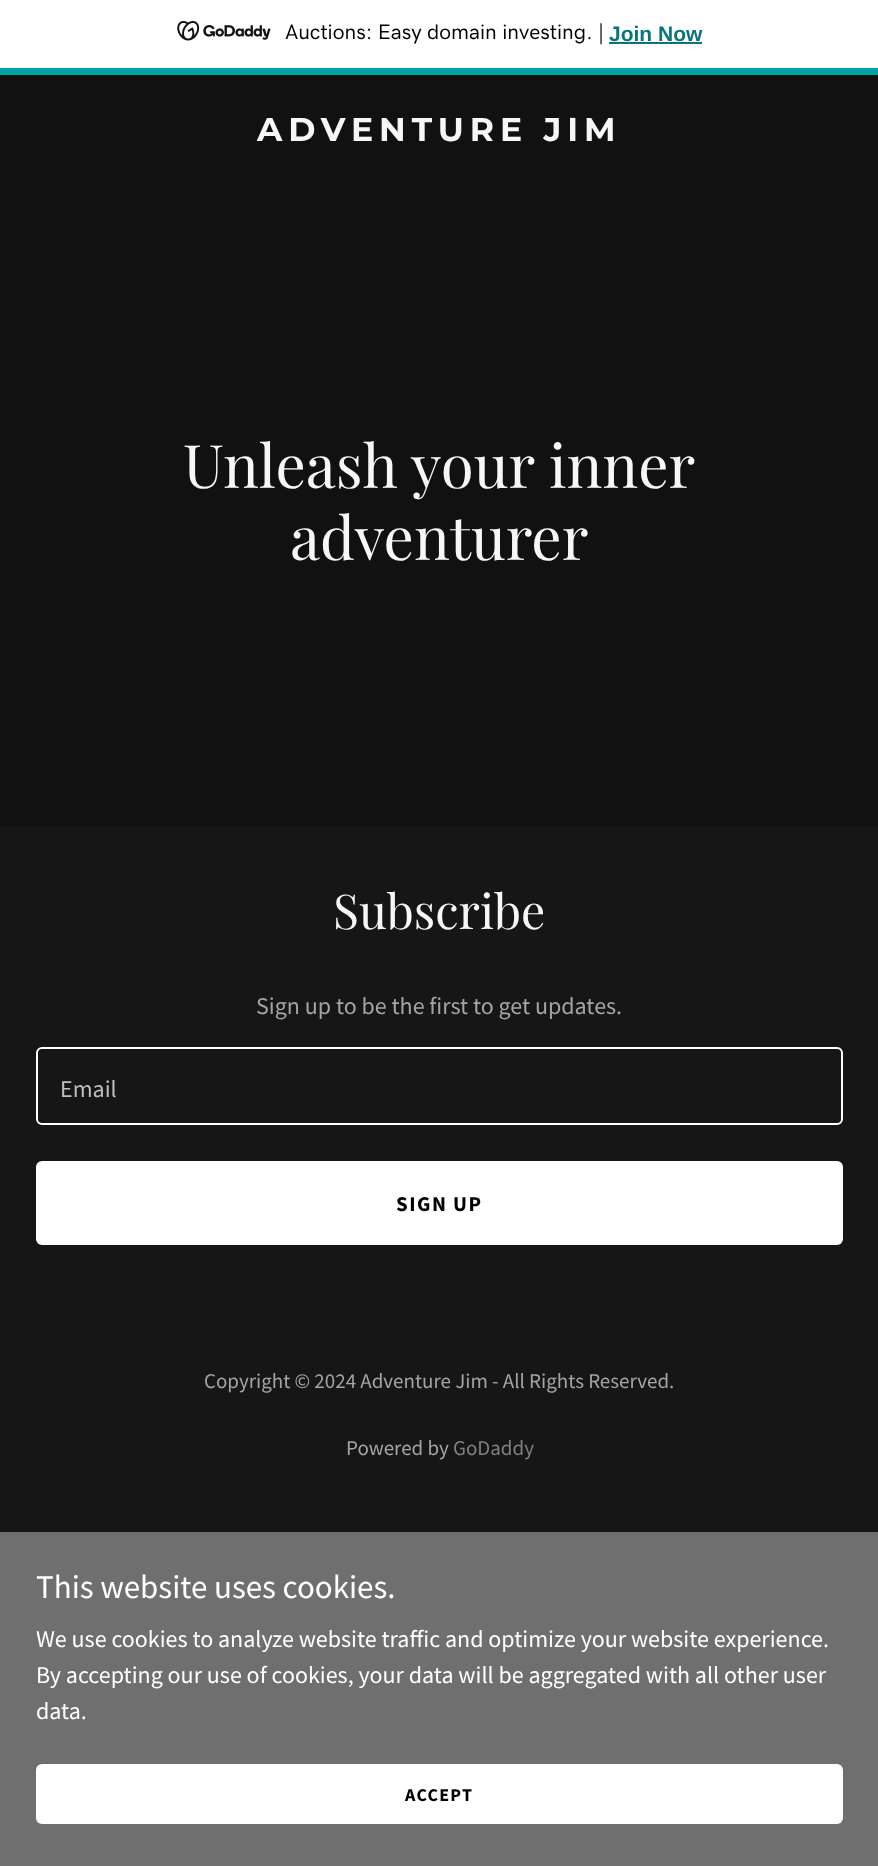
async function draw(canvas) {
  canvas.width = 878;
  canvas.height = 1866;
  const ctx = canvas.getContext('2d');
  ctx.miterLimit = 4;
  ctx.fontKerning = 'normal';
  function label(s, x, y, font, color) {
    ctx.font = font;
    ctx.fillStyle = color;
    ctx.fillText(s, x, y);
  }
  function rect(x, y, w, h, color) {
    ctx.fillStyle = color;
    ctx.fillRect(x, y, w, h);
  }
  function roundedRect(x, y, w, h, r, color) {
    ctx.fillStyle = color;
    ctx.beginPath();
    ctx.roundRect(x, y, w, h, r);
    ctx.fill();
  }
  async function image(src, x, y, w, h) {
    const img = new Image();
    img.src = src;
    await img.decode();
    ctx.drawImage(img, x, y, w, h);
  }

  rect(0, 0, 878, 1866, '#161616');
  rect(0, 0, 878, 68, '#fff');
  rect(0, 68, 878, 7, '#00a4a6');
  await image('assets/img1.png', 177, 21, 94, 20);
  label('Auctions: Easy domain investing. |', 285, 39, '500 21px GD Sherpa', '#000');
  label('Join Now', 609, 41, 'bold 21px Liberation Sans', '#09757a');
  rect(609, 42, 93, 2, '#09757a');
  rect(0, 75, 878, 750, '#111');
  ctx.letterSpacing = '6px';
  label('ADVENTURE JIM', 257, 141, 'bold 33px Montserrat', '#f7f7f7');
  ctx.letterSpacing = '0px';
  label('Unleash your inner', 183, 488, '60px Playfair Display', '#f7f7f7');
  label('adventurer', 290, 560, '60px Playfair Display', '#f7f7f7');
  label('Subscribe', 333, 929, '48px Playfair Display', '#f7f7f7');
  label('Sign up to be the first to get updates.', 256, 1014, '24px Source Sans Pro', '#a4a4a4');
  ctx.beginPath();
  ctx.roundRect(37, 1048, 805, 76, 5);
  ctx.strokeStyle = '#fff';
  ctx.lineWidth = 2;
  ctx.stroke();
  label('Email', 60, 1097, '24px Source Sans Pro', '#bfbfbf');
  roundedRect(36, 1161, 807, 84, 6, '#fff');
  ctx.letterSpacing = '1.5px';
  label('SIGN UP', 396, 1211, 'bold 21px Source Sans Pro', '#000');
  ctx.letterSpacing = '0px';
  label('Copyright © 2024 Adventure Jim - All Rights Reserved.', 204, 1388, '21px Source Sans Pro', '#a4a4a4');
  label('Powered by', 346, 1455, '21px Source Sans Pro', '#a4a4a4');
  label('GoDaddy', 453, 1455, '21px Source Sans Pro', '#7f8080');
  rect(0, 1532, 878, 334, '#6f6f6f');
  label('This website uses cookies.', 36, 1598, '33px Source Sans Pro', '#fff');
  label('We use cookies to analyze website traffic and optimize your website experience.', 36, 1647, '24px Source Sans Pro', '#fff');
  label('By accepting our use of cookies, your data will be aggregated with all other user', 36, 1683, '24px Source Sans Pro', '#fff');
  label('data.', 36, 1719, '24px Source Sans Pro', '#fff');
  roundedRect(36, 1764, 807, 60, 6, '#fff');
  ctx.letterSpacing = '1.25px';
  label('ACCEPT', 405, 1801, 'bold 18px Source Sans Pro', '#000');
}

draw(document.querySelector('canvas'));
